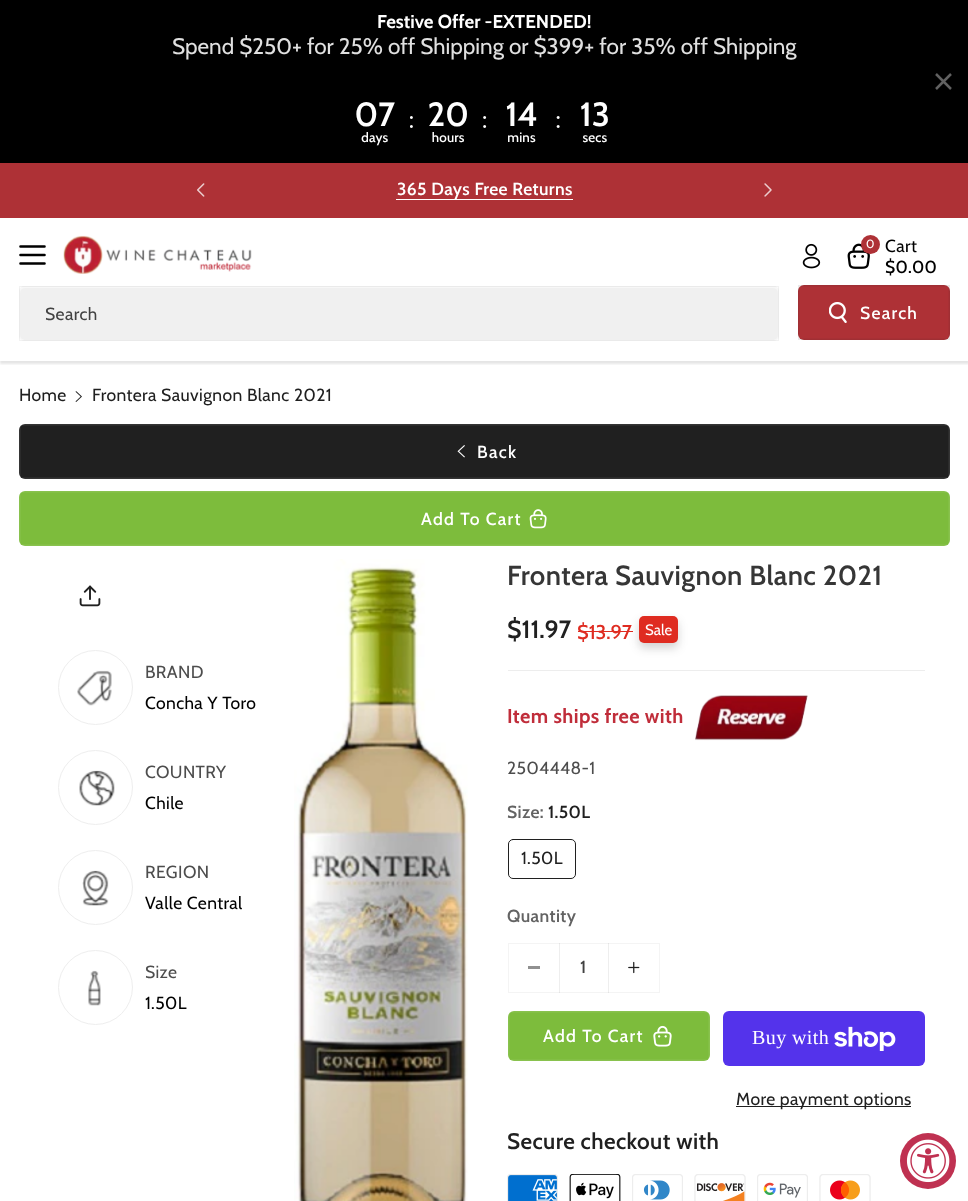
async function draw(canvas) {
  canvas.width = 968;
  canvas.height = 1201;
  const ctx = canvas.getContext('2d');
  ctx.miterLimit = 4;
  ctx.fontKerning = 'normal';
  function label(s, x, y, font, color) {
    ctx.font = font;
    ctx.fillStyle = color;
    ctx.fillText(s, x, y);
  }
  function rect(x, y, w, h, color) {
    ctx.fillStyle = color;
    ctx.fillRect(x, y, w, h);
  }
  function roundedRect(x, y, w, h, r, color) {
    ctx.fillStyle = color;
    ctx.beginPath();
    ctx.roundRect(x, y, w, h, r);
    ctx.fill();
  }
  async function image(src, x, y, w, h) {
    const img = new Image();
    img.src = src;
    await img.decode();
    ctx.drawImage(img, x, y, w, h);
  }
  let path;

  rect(0, 0, 968, 1201, '#fff');
  rect(0, 0, 968, 163, '#000');
  label('Festive Offer -EXTENDED!', 377, 28, 'bold 18.75px Cabin', '#fff');
  label('Spend $250+ for 25% off Shipping or $399+ for 35% off Shipping', 172, 54, '22.5px Cabin', '#e0e0e0');
  await image('assets/img1.png', 356, 102, 252, 44);
  path = new Path2D('M951 74L936 89M951 89L936 74');
  ctx.strokeStyle = '#616161';
  ctx.lineWidth = 2.5;
  ctx.stroke(path);
  rect(0, 163, 968, 55, '#ae3136');
  await image('assets/img2.png', 197, 183, 8, 14);
  rect(396, 199, 177, 1, '#fff');
  ctx.letterSpacing = '0.4px';
  label('365 Days Free Returns', 397, 195, '600 17.5px Cabin', '#fff');
  await image('assets/img3.png', 764, 183, 8, 14);
  ctx.save();
  ctx.beginPath();
  ctx.rect(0, 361, 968, 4);
  ctx.clip();
  ctx.fillStyle = '#0000001a';
  ctx.filter = 'blur(1px)';
  ctx.beginPath();
  ctx.rect(0, 220, 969, 144);
  ctx.fill();
  ctx.filter = 'none';
  ctx.restore();
  path = new Path2D('M20.5 263.5H44.5M20.5 255H44.5M20.5 246.5H44.5');
  ctx.strokeStyle = '#000';
  ctx.lineWidth = 2.6;
  ctx.lineCap = 'round';
  ctx.lineJoin = 'round';
  ctx.stroke(path);
  await image('assets/img4.png', 63, 235, 189, 39);
  await image('assets/img5.png', 802, 243, 19, 26);
  await image('assets/img6.png', 847, 243, 23, 26);
  ctx.fillStyle = '#ae3136';
  ctx.beginPath();
  ctx.arc(870.5, 244.5, 9.5, 0, 2 * Math.PI);
  ctx.fill();
  label('0', 866, 248, '12px Cabin', '#fff');
  label('Cart', 885, 252, '17.5px Cabin', '#000');
  label('$0.00', 885, 273, '500 17.5px Cabin', '#000');
  roundedRect(19, 286, 760, 55, 5, '#f7f7f7');
  roundedRect(20, 288, 758, 52, 5, '#f0f0f0');
  ctx.strokeStyle = '#0000000d';
  ctx.lineWidth = 1;
  ctx.lineJoin = 'miter';
  ctx.strokeRect(19.5, 286.5, 759, 54);
  label('Search', 45, 320, '17.5px Cabin', '#414141');
  roundedRect(798, 285, 152, 55, 6, '#ae3136');
  await image('assets/img7.png', 829, 302, 18, 21);
  ctx.strokeStyle = '#2020200d';
  ctx.strokeRect(798.5, 285.5, 151, 54);
  ctx.lineWidth = 2;
  ctx.strokeRect(799, 286, 150, 53);
  ctx.letterSpacing = '1.25px';
  label('Search', 860, 319, '500 17.5px Cabin', '#fff');
  ctx.letterSpacing = '0.4px';
  label('Home', 19, 401, '17.5px Cabin', '#202020');
  await image('assets/img8.png', 75, 391, 7, 11);
  label('Frontera Sauvignon Blanc 2021', 92, 401, '17.5px Cabin', '#202020');
  roundedRect(19, 424, 931, 55, 6, '#202020');
  await image('assets/img9.png', 457, 445, 8, 13);
  ctx.strokeStyle = '#ffffff0d';
  ctx.lineWidth = 1;
  ctx.strokeRect(19.5, 424.5, 930, 54);
  ctx.lineWidth = 2;
  ctx.strokeRect(20, 425, 929, 53);
  ctx.letterSpacing = '1.25px';
  label('Back', 477, 458, '500 17.5px Cabin', '#fff');
  roundedRect(19, 491, 931, 55, 6, '#7dbc3c');
  await image('assets/img10.png', 529, 509, 18, 20);
  ctx.lineWidth = 1;
  ctx.strokeRect(19.5, 491.5, 930, 54);
  ctx.lineWidth = 2;
  ctx.strokeRect(20, 492, 929, 53);
  label('Add To Cart', 421, 525, '500 17.5px Cabin', '#fff');
  await image('assets/img11.png', 79, 585, 22, 22);
  ctx.beginPath();
  ctx.arc(95.5, 687.5, 37, 0, 2 * Math.PI);
  ctx.strokeStyle = '#eee';
  ctx.lineWidth = 1;
  ctx.stroke();
  await image('assets/img12.png', 77, 670, 35, 36);
  ctx.letterSpacing = '0.4px';
  label('BRAND', 145, 678, '17.5px Cabin', '#4d4d4d');
  label('Concha Y Toro', 145, 709, '17.5px Cabin', '#000');
  ctx.beginPath();
  ctx.arc(95.5, 787.5, 37, 0, 2 * Math.PI);
  ctx.stroke();
  await image('assets/img13.png', 79, 770, 36, 36);
  label('COUNTRY', 145, 778, '17.5px Cabin', '#4d4d4d');
  label('Chile', 145, 809, '17.5px Cabin', '#000');
  ctx.beginPath();
  ctx.arc(95.5, 887.5, 37, 0, 2 * Math.PI);
  ctx.stroke();
  await image('assets/img14.png', 82, 870, 27, 36);
  label('REGION', 145, 878, '17.5px Cabin', '#4d4d4d');
  label('Valle Central', 145, 909, '17.5px Cabin', '#000');
  ctx.beginPath();
  ctx.arc(95.5, 987.5, 37, 0, 2 * Math.PI);
  ctx.stroke();
  await image('assets/img15.png', 88, 970, 13, 36);
  label('Size', 145, 978, '17.5px Cabin', '#4d4d4d');
  label('1.50L', 145, 1009, '17.5px Cabin', '#000');
  await image('assets/img16.png', 294, 559, 174, 642);
  label('Frontera Sauvignon Blanc 2021', 507, 585, '600 27.5px Cabin', '#363636');
  rect(508, 670, 417, 1, '#ededed');
  ctx.letterSpacing = '0px';
  label('$11.97', 507, 638, '600 25px Cabin', '#202020');
  label('$13.97', 577, 639, '500 20px Cabin', '#df2c21');
  rect(578, 631, 55, 1, '#df2c21');
  ctx.fillStyle = '#20202033';
  ctx.filter = 'blur(5px)';
  ctx.beginPath();
  ctx.roundRect(639, 621, 39, 27, 5);
  ctx.fill();
  ctx.filter = 'none';
  roundedRect(639, 616, 39, 27, 5, '#df2c21');
  label('Sale', 645, 635, '15px Cabin', '#fff');
  ctx.letterSpacing = '0.4px';
  label('Item ships free with', 507, 723, 'bold 20px Cabin', '#c02d3a');
  await image('assets/img17.png', 695, 695, 113, 46);
  label('2504448-1', 507, 774, '17.5px Cabin', '#4d4d4d');
  label('Size:', 507, 818, '600 17.5px Cabin', '#636363');
  label('1.50L', 548, 818, '600 17.5px Cabin', '#202020');
  ctx.beginPath();
  ctx.roundRect(508.5, 839.5, 67, 39, 4.5);
  ctx.strokeStyle = '#202020';
  ctx.stroke();
  label('1.50L', 521, 864, '17.5px Cabin', '#202020');
  label('Quantity', 507, 922, '600 17.5px Cabin', '#636363');
  rect(528, 966, 12, 3, '#909090');
  rect(608, 943, 1, 50, '#eee');
  rect(559, 943, 1, 50, '#eee');
  await image('assets/img18.png', 628, 961, 12, 13);
  ctx.strokeStyle = '#2020200d';
  ctx.strokeRect(508.5, 943.5, 151, 49);
  ctx.letterSpacing = '0px';
  label('1', 580, 973, '500 17.5px Cabin', '#414141');
  roundedRect(508, 1011, 202, 50, 6, '#7dbc3c');
  await image('assets/img19.png', 653, 1025, 19, 22);
  ctx.strokeStyle = '#ffffff0d';
  ctx.strokeRect(508.5, 1011.5, 201, 49);
  ctx.lineWidth = 2;
  ctx.strokeRect(509, 1012, 200, 48);
  ctx.letterSpacing = '1.25px';
  label('Add To Cart', 543, 1042, '500 17.5px Cabin', '#fff');
  roundedRect(723, 1011, 202, 55, 6, '#5433eb');
  ctx.letterSpacing = '0.4px';
  label('Buy with', 752, 1044, '20px Liberation Serif', '#fff');
  await image('assets/img20.png', 834, 1026, 62, 25);
  rect(736, 1106, 175, 1, '#202020');
  label('More payment options', 736, 1105, '17.5px Cabin', '#202020');
  label('Secure checkout with', 507, 1149, '600 22.5px Cabin', '#202020');
  await image('assets/img21.png', 507, 1174, 51, 27);
  await image('assets/img22.png', 569, 1174, 52, 27);
  await image('assets/img23.png', 632, 1174, 51, 27);
  await image('assets/img24.png', 694, 1174, 52, 27);
  await image('assets/img25.png', 757, 1174, 51, 27);
  await image('assets/img26.png', 819, 1174, 52, 27);
  ctx.fillStyle = '#bf3151';
  ctx.beginPath();
  ctx.arc(928, 1161, 28, 0, 2 * Math.PI);
  ctx.fill();
  await image('assets/img27.png', 906, 1139, 44, 44);
}

draw(document.querySelector('canvas'));
